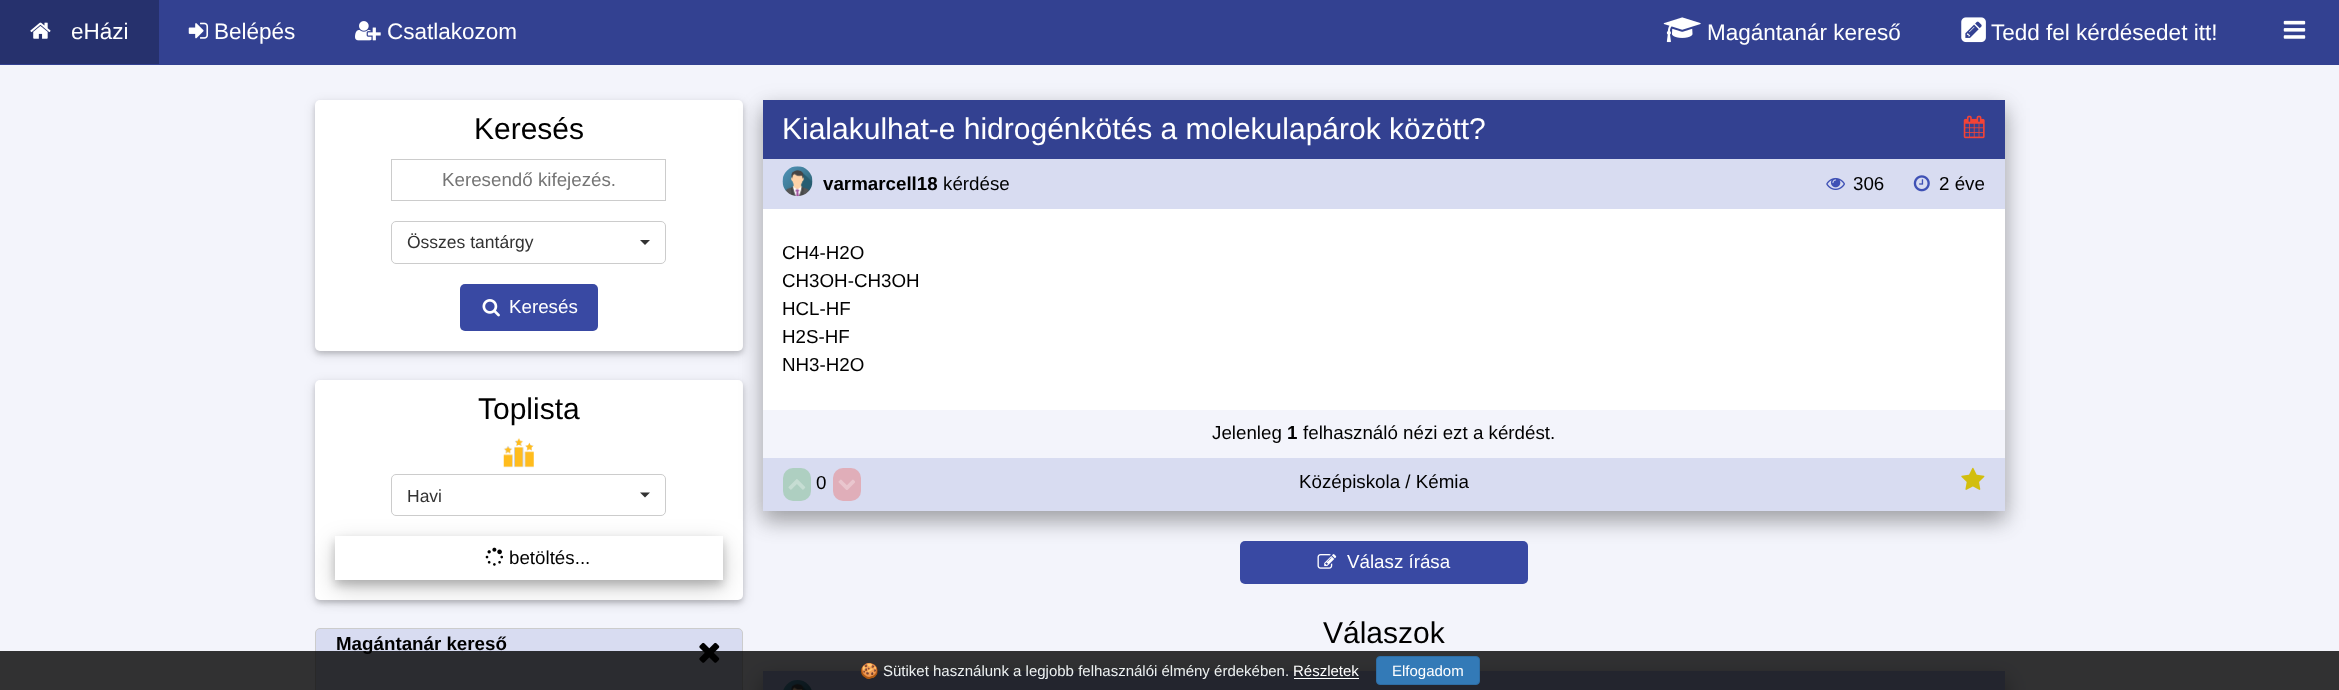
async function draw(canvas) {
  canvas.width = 2339;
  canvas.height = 690;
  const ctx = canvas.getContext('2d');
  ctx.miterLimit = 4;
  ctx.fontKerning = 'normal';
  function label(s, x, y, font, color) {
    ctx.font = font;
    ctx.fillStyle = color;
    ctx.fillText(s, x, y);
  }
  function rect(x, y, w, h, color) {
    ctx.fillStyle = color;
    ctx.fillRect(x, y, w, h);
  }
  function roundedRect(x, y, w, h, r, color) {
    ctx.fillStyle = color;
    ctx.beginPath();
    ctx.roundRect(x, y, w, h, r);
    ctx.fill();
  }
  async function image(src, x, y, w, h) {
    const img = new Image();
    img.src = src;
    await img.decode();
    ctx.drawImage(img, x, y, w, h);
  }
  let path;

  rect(0, 0, 2339, 690, '#f3f4fb');
  rect(0, 0, 2339, 65, '#334191');
  rect(0, 0, 159, 64, '#26316d');
  await image('assets/img1.png', 30, 22, 21, 17);
  label('eHázi', 71, 39, '22.5px Liberation Sans', '#fff');
  await image('assets/img2.png', 188, 22, 21, 17);
  label('Belépés', 214, 39, '22.5px Liberation Sans', '#fff');
  await image('assets/img3.png', 355, 21, 26, 20);
  label('Csatlakozom', 387, 39, '22.5px Liberation Sans', '#fff');
  await image('assets/img4.png', 1663, 17, 38, 26);
  label('Magántanár kereső', 1707, 40, '22.5px Liberation Sans', '#fff');
  await image('assets/img5.png', 1961, 17, 25, 26);
  label('Tedd fel kérdésedet itt!', 1991, 40, '22.5px Liberation Sans', '#fff');
  await image('assets/img6.png', 2283, 20, 23, 19);
  ctx.fillStyle = '#0000001f';
  ctx.filter = 'blur(6px)';
  ctx.beginPath();
  ctx.roundRect(315, 103, 428, 251, 5);
  ctx.fill();
  ctx.filter = 'none';
  ctx.fillStyle = '#00000029';
  ctx.filter = 'blur(2.5px)';
  ctx.beginPath();
  ctx.roundRect(315, 103, 428, 251, 5);
  ctx.fill();
  ctx.filter = 'none';
  roundedRect(315, 100, 428, 251, 5, '#fff');
  label('Keresés', 474, 139, '30px Liberation Sans', '#000');
  ctx.strokeStyle = '#ccc';
  ctx.strokeRect(391.5, 159.5, 274, 41);
  label('Keresendő kifejezés.', 442, 186, '18.75px Liberation Sans', '#757575');
  ctx.beginPath();
  ctx.roundRect(391.5, 221.5, 274, 42, 4.5);
  ctx.stroke();
  label('Összes tantárgy', 407, 248, '17.5px Liberation Sans', '#333');
  path = new Path2D('M640 240H650L645 245Z');
  ctx.fill(path);
  roundedRect(460, 284, 138, 47, 5, '#3949a3');
  await image('assets/img7.png', 482, 299, 18, 18);
  label('Keresés', 509, 313, '18.75px Liberation Sans', '#fff');
  ctx.fillStyle = '#0000001f';
  ctx.filter = 'blur(6px)';
  ctx.beginPath();
  ctx.roundRect(315, 383, 428, 220, 5);
  ctx.fill();
  ctx.filter = 'none';
  ctx.fillStyle = '#00000029';
  ctx.filter = 'blur(2.5px)';
  ctx.beginPath();
  ctx.roundRect(315, 383, 428, 220, 5);
  ctx.fill();
  ctx.filter = 'none';
  roundedRect(315, 380, 428, 220, 5, '#fff');
  label('Toplista', 478, 419, '30px Liberation Sans', '#000');
  await image('assets/img8.png', 503, 438, 31, 30);
  ctx.save();
  path = new Path2D('M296 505H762V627H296ZM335 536H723V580H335Z');
  ctx.clip(path, 'evenodd');
  ctx.fillStyle = '#00000030';
  ctx.filter = 'blur(12.5px)';
  ctx.beginPath();
  ctx.rect(335, 544, 388, 44);
  ctx.fill();
  ctx.filter = 'none';
  ctx.restore();
  ctx.beginPath();
  ctx.roundRect(391.5, 474.5, 274, 41, 4.5);
  ctx.stroke();
  label('Havi', 407, 502, '17.5px Liberation Sans', '#333');
  path = new Path2D('M640 492.5H650L645 497.5Z');
  ctx.fill(path);
  ctx.save();
  path = new Path2D('M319 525H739V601H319ZM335 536H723V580H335Z');
  ctx.clip(path, 'evenodd');
  ctx.fillStyle = '#00000033';
  ctx.filter = 'blur(5px)';
  ctx.beginPath();
  ctx.rect(335, 541, 388, 44);
  ctx.fill();
  ctx.filter = 'none';
  ctx.restore();
  await image('assets/img9.png', 485, 547, 18, 19);
  label('betöltés...', 509, 564, '18.75px Liberation Sans', '#000');
  ctx.fillStyle = '#d8dcf1';
  ctx.beginPath();
  ctx.roundRect(315.5, 628.5, 427, 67, 4.5);
  ctx.fill();
  ctx.stroke();
  label('Magántanár kereső', 336, 650, 'bold 18.75px Liberation Sans', '#000');
  await image('assets/img10.png', 699, 642, 21, 21);
  ctx.save();
  path = new Path2D('M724 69H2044V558H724ZM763 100H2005V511H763Z');
  ctx.clip(path, 'evenodd');
  ctx.fillStyle = '#00000030';
  ctx.filter = 'blur(12.5px)';
  ctx.beginPath();
  ctx.rect(763, 108, 1242, 411);
  ctx.fill();
  ctx.filter = 'none';
  ctx.restore();
  ctx.save();
  path = new Path2D('M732 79H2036V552H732ZM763 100H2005V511H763Z');
  ctx.clip(path, 'evenodd');
  ctx.fillStyle = '#00000033';
  ctx.filter = 'blur(10px)';
  ctx.beginPath();
  ctx.rect(763, 110, 1242, 411);
  ctx.fill();
  ctx.filter = 'none';
  ctx.restore();
  rect(763, 100, 1242, 59, '#334191');
  label('Kialakulhat-e hidrogénkötés a molekulapárok között?', 782, 139, '30px Liberation Sans', '#fff');
  await image('assets/img11.png', 1963, 115, 22, 24);
  rect(763, 159, 1242, 50, '#d8dcf1');
  await image('assets/img12.png', 782, 166, 31, 31);
  label('varmarcell18', 823, 190, 'bold 18.75px Liberation Sans', '#000');
  label('kérdése', 943, 190, '18.75px Liberation Sans', '#000');
  await image('assets/img13.png', 1826, 177, 19, 13);
  label('306', 1853, 190, '18.75px Liberation Sans', '#000');
  await image('assets/img14.png', 1913, 175, 17, 17);
  label('2 éve', 1939, 190, '18.75px Liberation Sans', '#000');
  rect(763, 209, 1242, 201, '#fff');
  label('CH4-H2O', 782, 259, '18.75px Liberation Sans', '#000');
  label('CH3OH-CH3OH', 782, 287, '18.75px Liberation Sans', '#000');
  label('HCL-HF', 782, 315, '18.75px Liberation Sans', '#000');
  label('H2S-HF', 782, 343, '18.75px Liberation Sans', '#000');
  label('NH3-H2O', 782, 371, '18.75px Liberation Sans', '#000');
  label('Jelenleg', 1212, 439, '18.75px Liberation Sans', '#000');
  label('1', 1287, 439, 'bold 18.75px Liberation Sans', '#000');
  label('felhasználó nézi ezt a kérdést.', 1303, 439, '18.75px Liberation Sans', '#000');
  rect(763, 458, 1242, 53, '#d8dcf1');
  roundedRect(783, 468, 28, 33, 10, '#aecfc1');
  await image('assets/img15.png', 788, 479, 18, 11);
  label('0', 816, 489, '18.75px Liberation Sans', '#000');
  roundedRect(833, 468, 28, 33, 10, '#e0aeb9');
  await image('assets/img16.png', 838, 479, 17, 11);
  label('Középiskola / Kémia', 1299, 488, '18.75px Liberation Sans', '#000');
  await image('assets/img17.png', 1961, 467, 24, 23);
  roundedRect(1240, 541, 288, 43, 5, '#3949a3');
  await image('assets/img18.png', 1317, 554, 20, 15);
  label('Válasz írása', 1347, 568, '18.75px Liberation Sans', '#fff');
  ctx.fillStyle = '#00000030';
  ctx.filter = 'blur(12.5px)';
  ctx.beginPath();
  ctx.rect(763, 679, 1242, 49);
  ctx.fill();
  ctx.filter = 'none';
  label('Válaszok', 1323, 643, '30px Liberation Sans', '#000');
  ctx.fillStyle = '#00000033';
  ctx.filter = 'blur(10px)';
  ctx.beginPath();
  ctx.rect(763, 681, 1242, 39);
  ctx.fill();
  ctx.filter = 'none';
  rect(763, 671, 1242, 19, '#b1b8e3');
  await image('assets/img19.png', 783, 680, 29, 10);
  rect(0, 651, 2339, 39, '#000000cc');
  label('🍪', 860, 676, '15px Noto Color Emoji', '#ecf0f1');
  label('Sütiket használunk a legjobb felhasználói élmény érdekében.', 883, 676, '15px Liberation Sans', '#ecf0f1');
  label('Részletek', 1293, 676, '15px Liberation Sans', '#fff');
  rect(1294, 678, 65, 1, '#fff');
  ctx.fillStyle = '#337ab7';
  ctx.beginPath();
  ctx.roundRect(1376.5, 656.5, 103, 28, 3.5);
  ctx.fill();
  ctx.strokeStyle = '#2e6da4';
  ctx.stroke();
  label('Elfogadom', 1392, 676, '15px Liberation Sans', '#fff');
}

draw(document.querySelector('canvas'));
